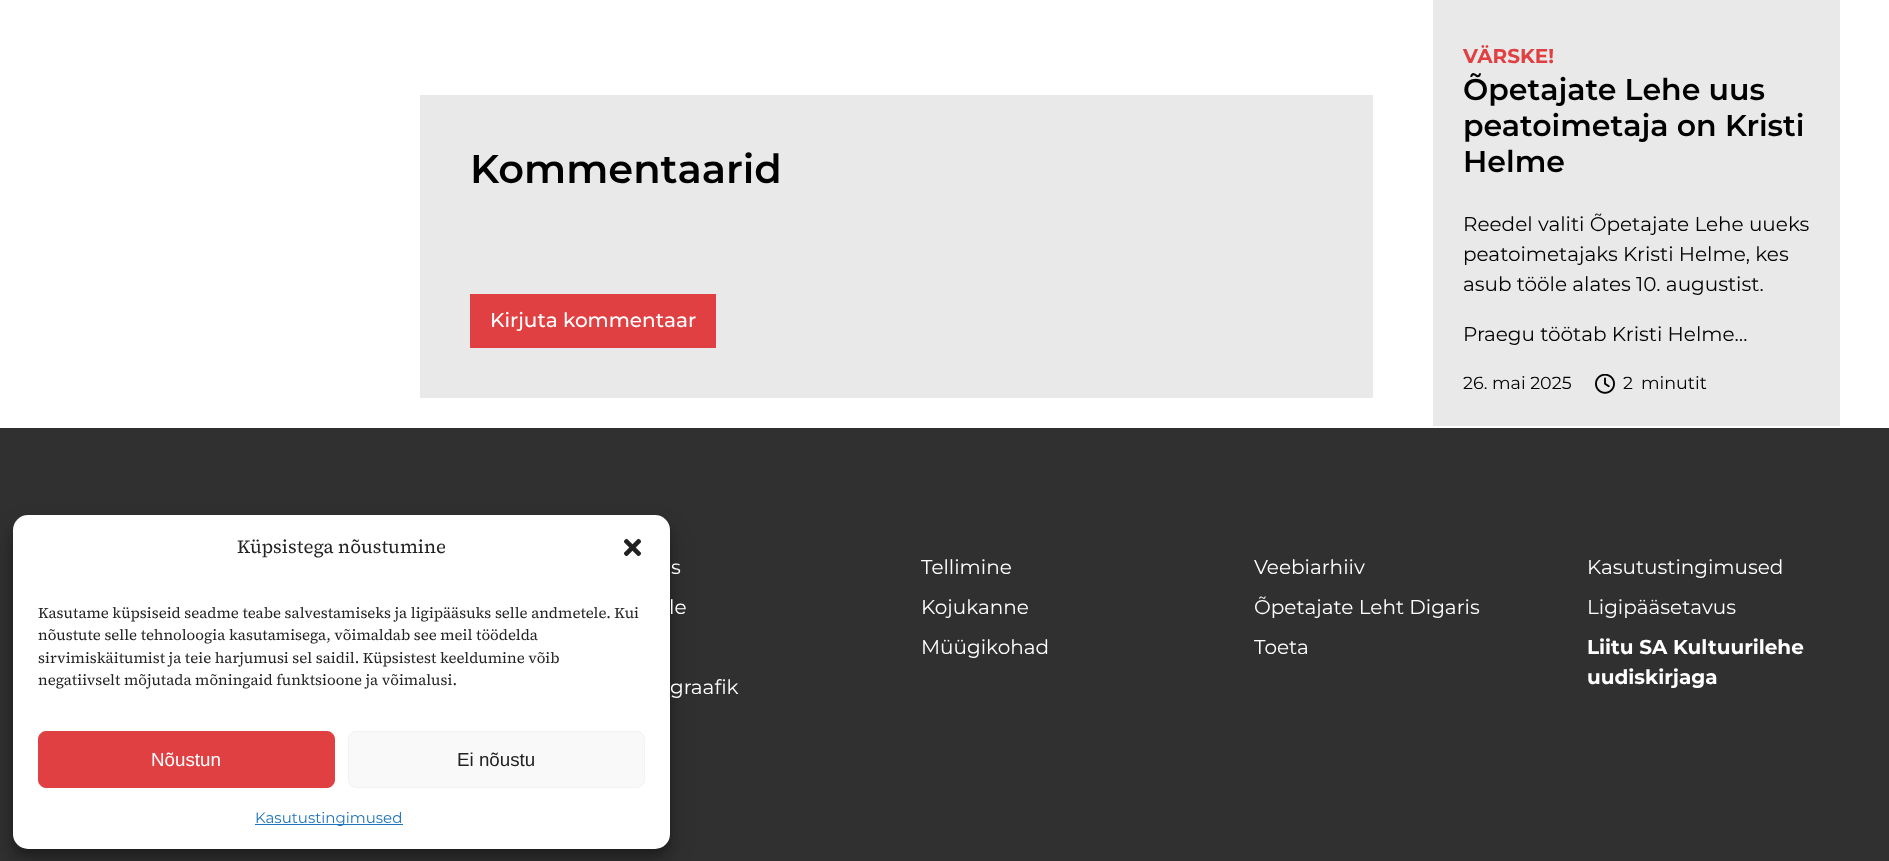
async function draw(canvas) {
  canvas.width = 1889;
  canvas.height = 861;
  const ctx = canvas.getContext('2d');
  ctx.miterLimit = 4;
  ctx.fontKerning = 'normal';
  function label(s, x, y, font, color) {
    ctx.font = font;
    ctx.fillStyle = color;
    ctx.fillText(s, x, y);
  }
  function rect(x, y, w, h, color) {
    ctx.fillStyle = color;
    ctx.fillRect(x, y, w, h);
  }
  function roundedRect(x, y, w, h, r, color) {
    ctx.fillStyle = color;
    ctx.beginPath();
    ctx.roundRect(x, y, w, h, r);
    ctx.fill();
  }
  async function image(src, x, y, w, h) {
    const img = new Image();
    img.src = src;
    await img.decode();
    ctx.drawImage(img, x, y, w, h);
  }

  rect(0, 0, 1889, 861, '#fff');
  rect(0, 428, 1889, 433, '#303030');
  ctx.fillStyle = '#0000003b';
  ctx.filter = 'blur(4px)';
  ctx.beginPath();
  ctx.roundRect(13, 523, 657, 333, 15);
  ctx.fill();
  ctx.filter = 'none';
  ctx.fillStyle = '#00000030';
  ctx.filter = 'blur(12.5px)';
  ctx.beginPath();
  ctx.roundRect(13, 528, 657, 333, 15);
  ctx.fill();
  ctx.filter = 'none';
  roundedRect(13, 515, 657, 334, 15, '#fff');
  label('Küpsistega nõustumine', 237, 553, '18.75px "Source Serif 4"', '#222');
  await image('assets/img1.png', 623, 538, 19, 19);
  label('Kasutame küpsiseid seadme teabe salvestamiseks ja ligipääsuks selle andmetele. Kui', 38, 618, '15px "Source Serif 4"', '#222');
  label('nõustute selle tehnoloogia kasutamisega, võimaldab see meil töödelda', 38, 640, '15px "Source Serif 4"', '#222');
  label('sirvimiskäitumist ja teie harjumusi sel saidil. Küpsistest keeldumine võib', 38, 663, '15px "Source Serif 4"', '#222');
  label('negatiivselt mõjutada mõningaid funktsioone ja võimalusi.', 38, 685, '15px "Source Serif 4"', '#222');
  ctx.fillStyle = '#e04042';
  ctx.beginPath();
  ctx.roundRect(38.5, 731.5, 296, 56, 7.5);
  ctx.fill();
  ctx.strokeStyle = '#e04042';
  ctx.stroke();
  label('Nõustun', 151, 766, '18.75px Liberation Sans', '#fff');
  ctx.fillStyle = '#f9f9f9';
  ctx.beginPath();
  ctx.roundRect(348.5, 731.5, 296, 56, 7.5);
  ctx.fill();
  ctx.strokeStyle = '#f2f2f2';
  ctx.stroke();
  label('Ei nõustu', 457, 766, '18.75px Liberation Sans', '#222');
  rect(255, 824, 148, 1, '#1e73be');
  label('Kasutustingimused', 255, 823, '15px Montserrat', '#1e73be');
  rect(420, 95, 953, 303, '#e9e9e9');
  label('Kommentaarid', 470, 183, '600 40px Montserrat', '#000');
  rect(470, 294, 246, 54, '#e04042');
  label('Kirjuta kommentaar', 490, 327, '500 20px Montserrat', '#fff');
  rect(1433, 0, 407, 426, '#e9e9e9');
  label('VÄRSKE!', 1463, 63, 'bold 20px Montserrat', '#e04042');
  label('Õpetajate Lehe uus', 1463, 100, '600 30px Montserrat', '#000');
  label('peatoimetaja on Kristi', 1463, 136, '600 30px Montserrat', '#000');
  label('Helme', 1463, 172, '600 30px Montserrat', '#000');
  label('Reedel valiti Õpetajate Lehe uueks', 1463, 231, '20px Montserrat', '#000');
  label('peatoimetajaks Kristi Helme, kes', 1463, 261, '20px Montserrat', '#000');
  label('asub tööle alates 10. augustist.', 1463, 291, '20px Montserrat', '#000');
  label('Praegu töötab Kristi Helme…', 1463, 341, '20px Montserrat', '#000');
  label('26. mai 2025', 1463, 389, '17.5px Montserrat', '#000');
  await image('assets/img2.png', 1595, 374, 20, 20);
  label('2', 1623, 389, '17.5px Montserrat', '#000');
  label('minutit', 1641, 389, '17.5px Montserrat', '#000');
  label('s', 671, 574, '20px Montserrat', '#fff');
  label('le', 669, 614, '20px Montserrat', '#fff');
  label('graafik', 670, 694, '20px Montserrat', '#fff');
  label('Tellimine', 921, 574, '20px Montserrat', '#fff');
  label('Kojukanne', 921, 614, '20px Montserrat', '#fff');
  label('Müügikohad', 921, 654, '20px Montserrat', '#fff');
  label('Veebiarhiiv', 1254, 574, '20px Montserrat', '#fff');
  label('Õpetajate Leht Digaris', 1254, 614, '20px Montserrat', '#fff');
  label('Toeta', 1254, 654, '20px Montserrat', '#fff');
  label('Kasutustingimused', 1587, 574, '20px Montserrat', '#fff');
  label('Ligipääsetavus', 1587, 614, '20px Montserrat', '#fff');
  label('Liitu SA Kultuurilehe', 1587, 654, 'bold 20px Montserrat', '#fff');
  label('uudiskirjaga', 1587, 684, 'bold 20px Montserrat', '#fff');
}

draw(document.querySelector('canvas'));
